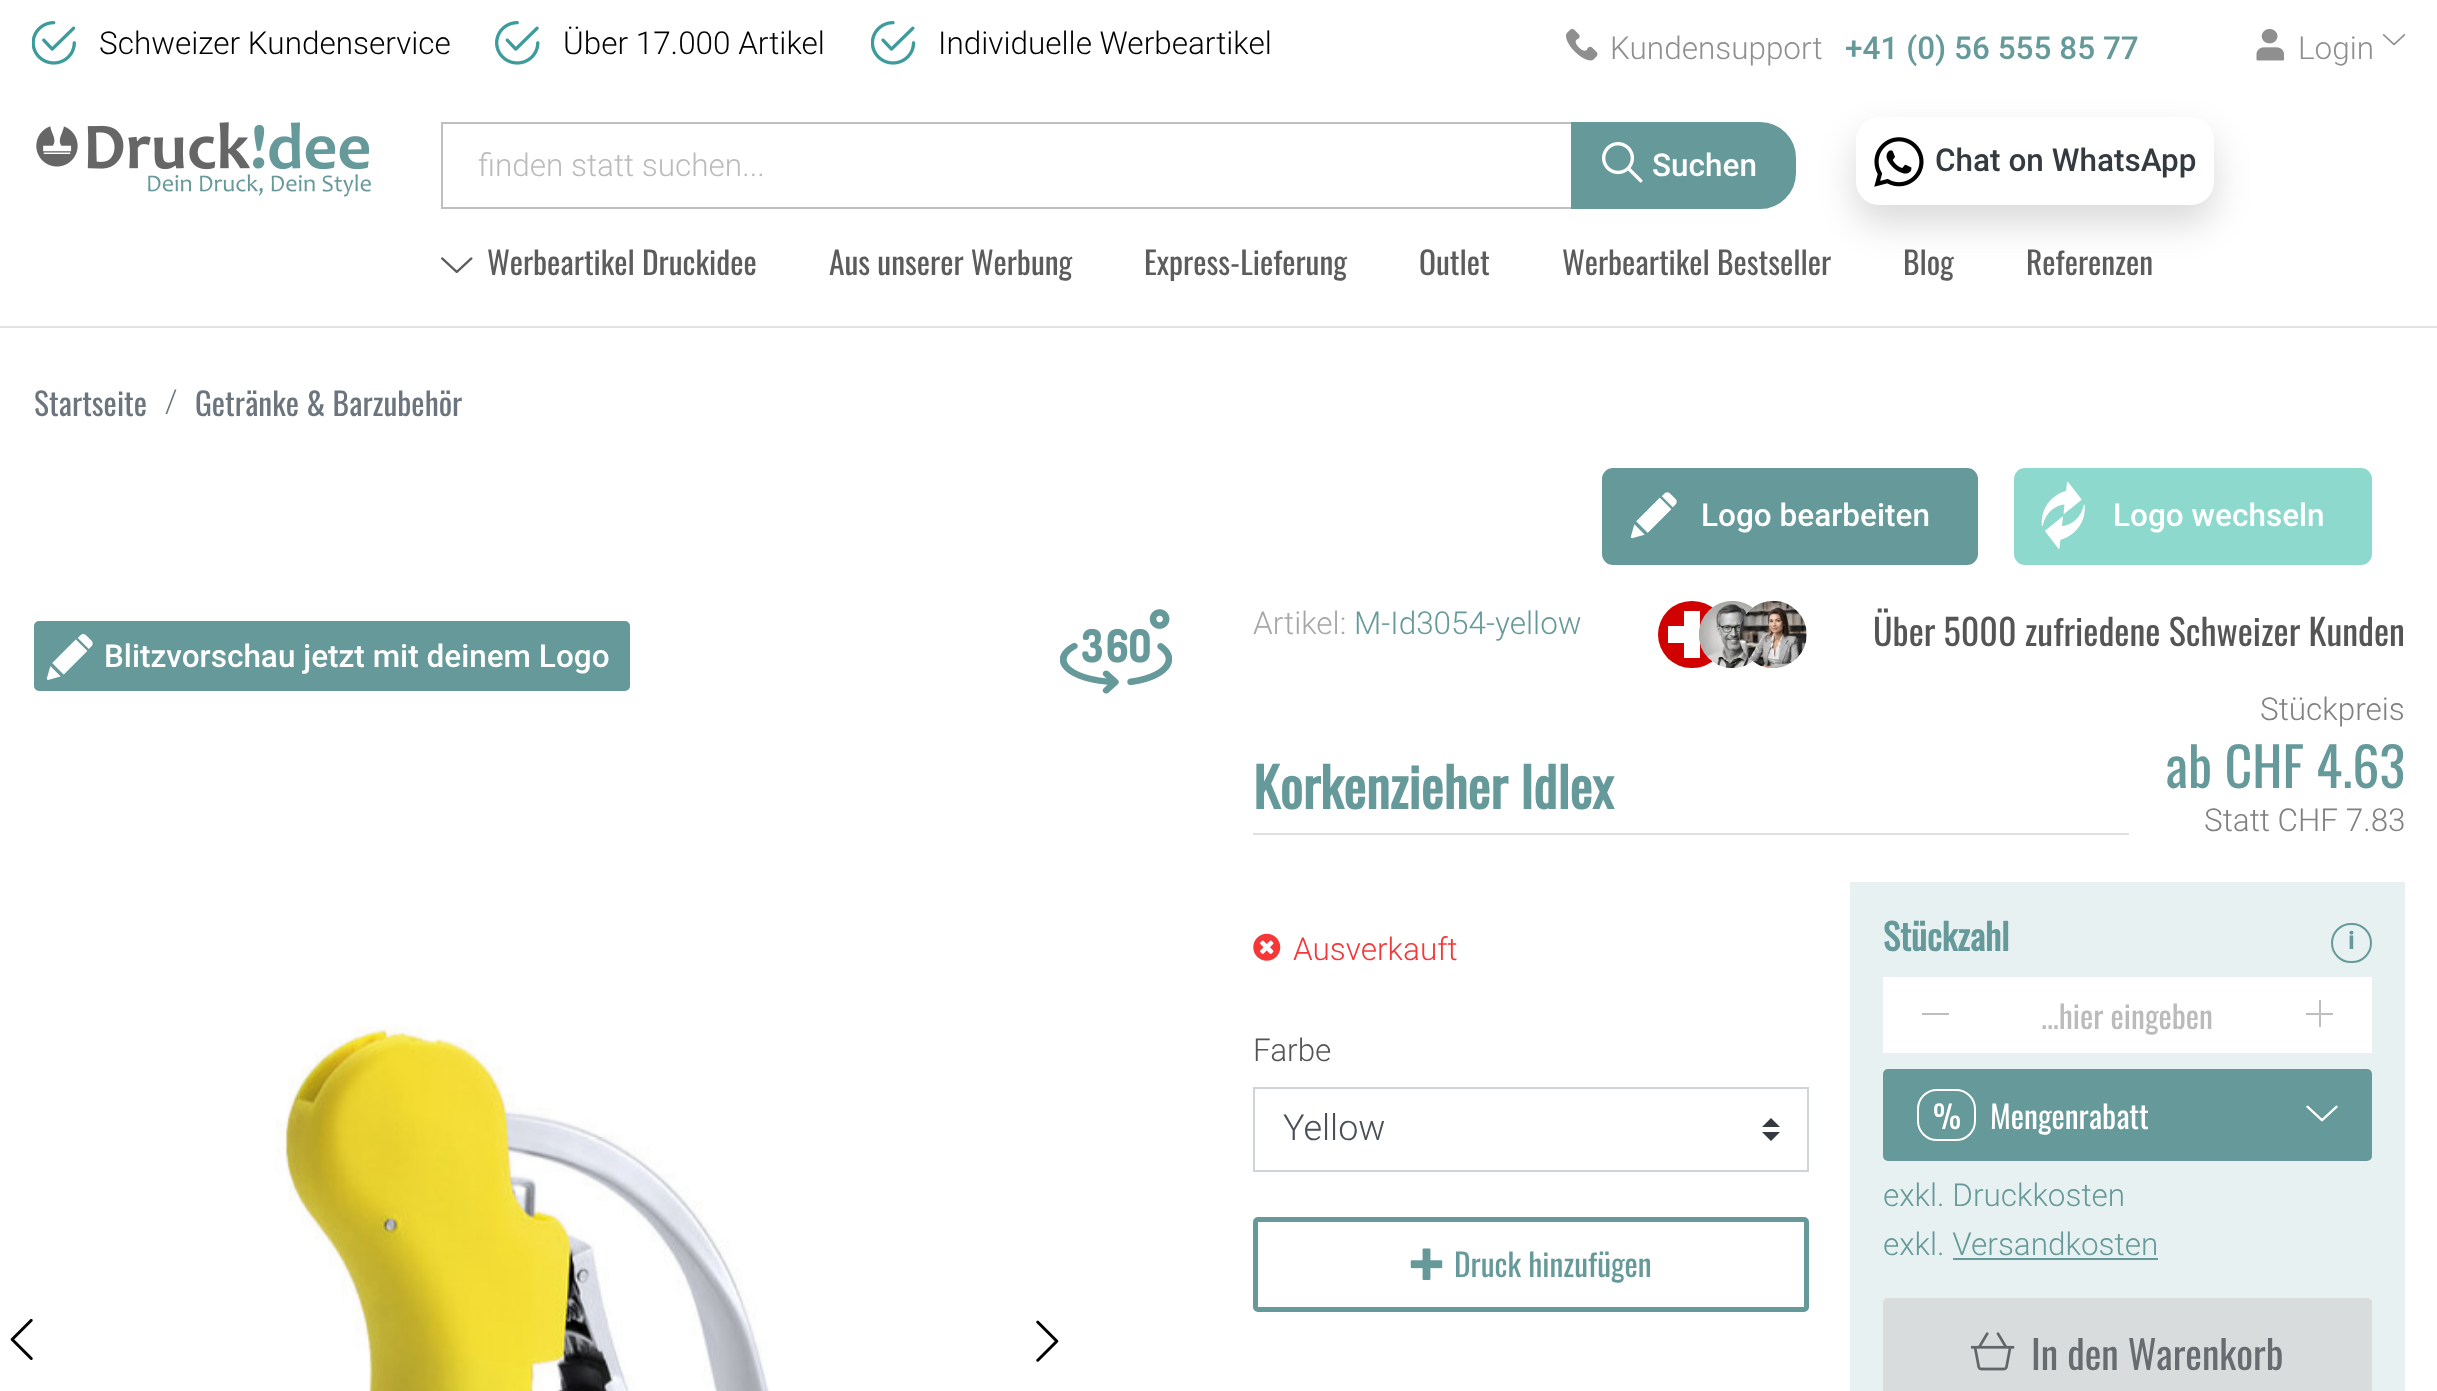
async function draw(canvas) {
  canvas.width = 2437;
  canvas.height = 1391;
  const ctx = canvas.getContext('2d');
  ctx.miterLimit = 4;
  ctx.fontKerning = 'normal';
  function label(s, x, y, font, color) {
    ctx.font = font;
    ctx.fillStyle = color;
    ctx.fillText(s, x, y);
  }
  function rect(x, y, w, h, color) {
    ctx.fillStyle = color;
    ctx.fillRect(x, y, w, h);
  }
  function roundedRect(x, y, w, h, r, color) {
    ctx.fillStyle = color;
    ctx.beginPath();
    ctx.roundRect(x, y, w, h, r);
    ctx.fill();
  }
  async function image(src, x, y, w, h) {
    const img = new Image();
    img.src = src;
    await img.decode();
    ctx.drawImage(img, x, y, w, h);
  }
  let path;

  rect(0, 0, 2437, 1391, '#fff');
  rect(0, 326, 2437, 2, '#e2e2e2');
  await image('assets/img1.png', 32, 21, 44, 44);
  label('Schweizer Kundenservice', 99, 54, '300 31.5px Roboto', '#000');
  await image('assets/img2.png', 495, 21, 45, 44);
  label('Über 17.000 Artikel', 563, 54, '300 31.5px Roboto', '#000');
  await image('assets/img3.png', 871, 21, 45, 44);
  label('Individuelle Werbeartikel', 938, 54, '300 31.5px Roboto', '#000');
  await image('assets/img4.png', 36, 122, 335, 75);
  ctx.strokeStyle = '#bfbfbf';
  ctx.lineWidth = 2;
  ctx.strokeRect(442, 123, 1130, 85);
  label('finden statt suchen...', 478, 176, '300 31.5px Roboto', '#bbb');
  ctx.fillStyle = '#699';
  ctx.beginPath();
  ctx.roundRect(1572, 123, 223, 85, [0, 35, 35, 0]);
  ctx.fill();
  ctx.strokeStyle = '#699';
  ctx.stroke();
  await image('assets/img5.png', 1602, 142, 41, 41);
  label('Suchen', 1652, 176, '500 31.5px Roboto', '#fff');
  await image('assets/img6.png', 441, 257, 32, 17);
  label('Werbeartikel Druckidee', 487, 275, '31.5px Oswald', '#5c5c5c');
  label('Aus unserer Werbung', 829, 275, '31.5px Oswald', '#5c5c5c');
  label('Express-Lieferung', 1144, 275, '31.5px Oswald', '#5c5c5c');
  label('Outlet', 1419, 275, '31.5px Oswald', '#5c5c5c');
  label('Werbeartikel Bestseller', 1562, 275, '31.5px Oswald', '#5c5c5c');
  label('Blog', 1903, 275, '31.5px Oswald', '#5c5c5c');
  label('Referenzen', 2026, 275, '31.5px Oswald', '#5c5c5c');
  await image('assets/img7.png', 1566, 29, 32, 32);
  label('Kundensupport', 1610, 59, '300 31.5px Roboto', '#8f8f8f');
  label('+41 (0) 56 555 85 77', 1845, 59, '500 31.5px Roboto', '#699');
  await image('assets/img8.png', 2256, 29, 28, 32);
  label('Login', 2298, 59, '300 31.5px Roboto', '#8f8f8f');
  await image('assets/img9.png', 2382, 34, 24, 12);
  ctx.fillStyle = '#00000026';
  ctx.filter = 'blur(18px)';
  ctx.beginPath();
  ctx.roundRect(1856, 135, 358, 88, 23);
  ctx.fill();
  ctx.filter = 'none';
  roundedRect(1856, 117, 358, 88, 23, '#fff');
  await image('assets/img10.png', 1874, 137, 50, 50);
  label('Chat on WhatsApp', 1935, 171, '500 31.5px Roboto', '#343a40');
  label('Startseite', 34, 416, '31.5px Oswald', '#6c757d');
  label('/', 165, 412, '300 31.5px Roboto', '#6c757d');
  label('Getränke & Barzubehör', 195, 416, '31.5px Oswald', '#6c757d');
  ctx.fillStyle = '#699';
  ctx.beginPath();
  ctx.roundRect(1603, 469, 374, 95, 10);
  ctx.fill();
  ctx.stroke();
  await image('assets/img11.png', 1630, 492, 47, 47);
  label('Logo bearbeiten', 1701, 526, '500 31.5px Roboto', '#fff');
  ctx.fillStyle = '#8ed9ce';
  ctx.beginPath();
  ctx.roundRect(2015, 469, 356, 95, 10);
  ctx.fill();
  ctx.strokeStyle = '#8ed9ce';
  ctx.stroke();
  await image('assets/img12.png', 2041, 482, 44, 67);
  label('Logo wechseln', 2113, 526, '500 31.5px Roboto', '#fff');
  ctx.fillStyle = '#699';
  ctx.beginPath();
  ctx.roundRect(35, 622, 594, 68, 4);
  ctx.fill();
  ctx.strokeStyle = '#699';
  ctx.stroke();
  await image('assets/img13.png', 46, 634, 47, 46);
  label('Blitzvorschau jetzt mit deinem Logo', 104, 667, '500 31.5px Roboto', '#fff');
  await image('assets/img14.png', 1060, 609, 112, 85);
  await image('assets/img15.png', 10, 1319, 23, 41);
  await image('assets/img16.png', 275, 1026, 494, 365);
  await image('assets/img17.png', 1036, 1320, 23, 42);
  label('Artikel:', 1253, 634, '300 31.5px Roboto', '#a7a7a7');
  label('M-Id3054-yellow', 1354, 634, '300 31.5px Roboto', '#699');
  roundedRect(1658, 601, 68, 67, 33.5, '#d00100');
  ctx.fillStyle = '#fff';
  path = new Path2D('M1716 626H1700V611H1684V626H1668V643H1684V658H1700V643H1716Z');
  ctx.fill(path, 'evenodd');
  await image('assets/img18.png', 1698, 600, 55, 69);
  await image('assets/img19.png', 1739, 600, 68, 69);
  label('Über 5000 zufriedene Schweizer Kunden', 1873, 646, '36px Oswald', '#555');
  rect(1253, 833, 876, 2, '#e0e0e0');
  label('Korkenzieher Idlex', 1253, 809, 'bold 54px Oswald', '#699');
  label('Stückpreis', 2260, 720, '300 31.5px Roboto', '#818181');
  label('ab CHF 4.63', 2165, 788, '54px Oswald', '#699');
  label('Statt CHF 7.83', 2204, 831, '300 31.5px Roboto', '#818181');
  await image('assets/img20.png', 1253, 933, 28, 28);
  label('Ausverkauft', 1293, 960, '300 31.5px Roboto', '#f53737');
  label('Farbe', 1253, 1061, '300 31.5px Roboto', '#555');
  ctx.fillStyle = '#343a40';
  path = new Path2D('M1771 1118L1762 1127H1780ZM1771 1141L1762 1132H1780Z');
  ctx.fill(path);
  ctx.strokeStyle = '#ced4da';
  ctx.strokeRect(1254, 1088, 554, 83);
  label('Yellow', 1283, 1140, '300 36px Roboto', '#495057');
  ctx.beginPath();
  ctx.roundRect(1255.5, 1219.5, 551, 90, 2.5);
  ctx.strokeStyle = '#699';
  ctx.lineWidth = 5;
  ctx.stroke();
  await image('assets/img21.png', 1410, 1248, 33, 32);
  label('Druck hinzufügen', 1454, 1277, '31.5px Oswald', '#699');
  rect(1850, 882, 555, 509, '#e7f1f1');
  label('Stückzahl', 1883, 951, 'bold 36px Oswald', '#699');
  ctx.beginPath();
  ctx.roundRect(2332, 924, 39, 38, 19);
  ctx.lineWidth = 2;
  ctx.stroke();
  label('i', 2348, 949, 'bold 24px Roboto', '#699');
  rect(1883, 977, 102, 76, '#fff');
  rect(1922, 1013, 27, 2, '#bfbfbf');
  rect(1985, 977, 387, 76, '#fff');
  rect(2306, 1013, 27, 2, '#bfbfbf');
  rect(2319, 1000, 2, 27, '#bfbfbf');
  label('...hier eingeben', 2041, 1029, '31.5px Oswald', '#bbb');
  roundedRect(1883, 1069, 489, 92, 5, '#699');
  ctx.beginPath();
  ctx.roundRect(1918, 1090, 57, 50, 19);
  ctx.strokeStyle = '#fff';
  ctx.stroke();
  label('%', 1933, 1129, '31.5px Oswald', '#fff');
  label('Mengenrabatt', 1990, 1129, '31.5px Oswald', '#fff');
  await image('assets/img22.png', 2306, 1105, 32, 17);
  label('exkl. Druckkosten', 1883, 1206, '300 31.5px Roboto', '#699');
  label('exkl. Versandkosten', 1883, 1255, '300 31.5px Roboto', '#699');
  rect(1953, 1258, 205, 2, '#699');
  ctx.fillStyle = '#d8dcdd';
  ctx.beginPath();
  ctx.roundRect(1884, 1299, 487, 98, 4);
  ctx.fill();
  ctx.strokeStyle = '#d8dcdd';
  ctx.stroke();
  await image('assets/img23.png', 1971, 1332, 44, 39);
  label('In den Warenkorb', 2031, 1370, '39.5px Oswald', '#666c6f');
}

draw(document.querySelector('canvas'));
